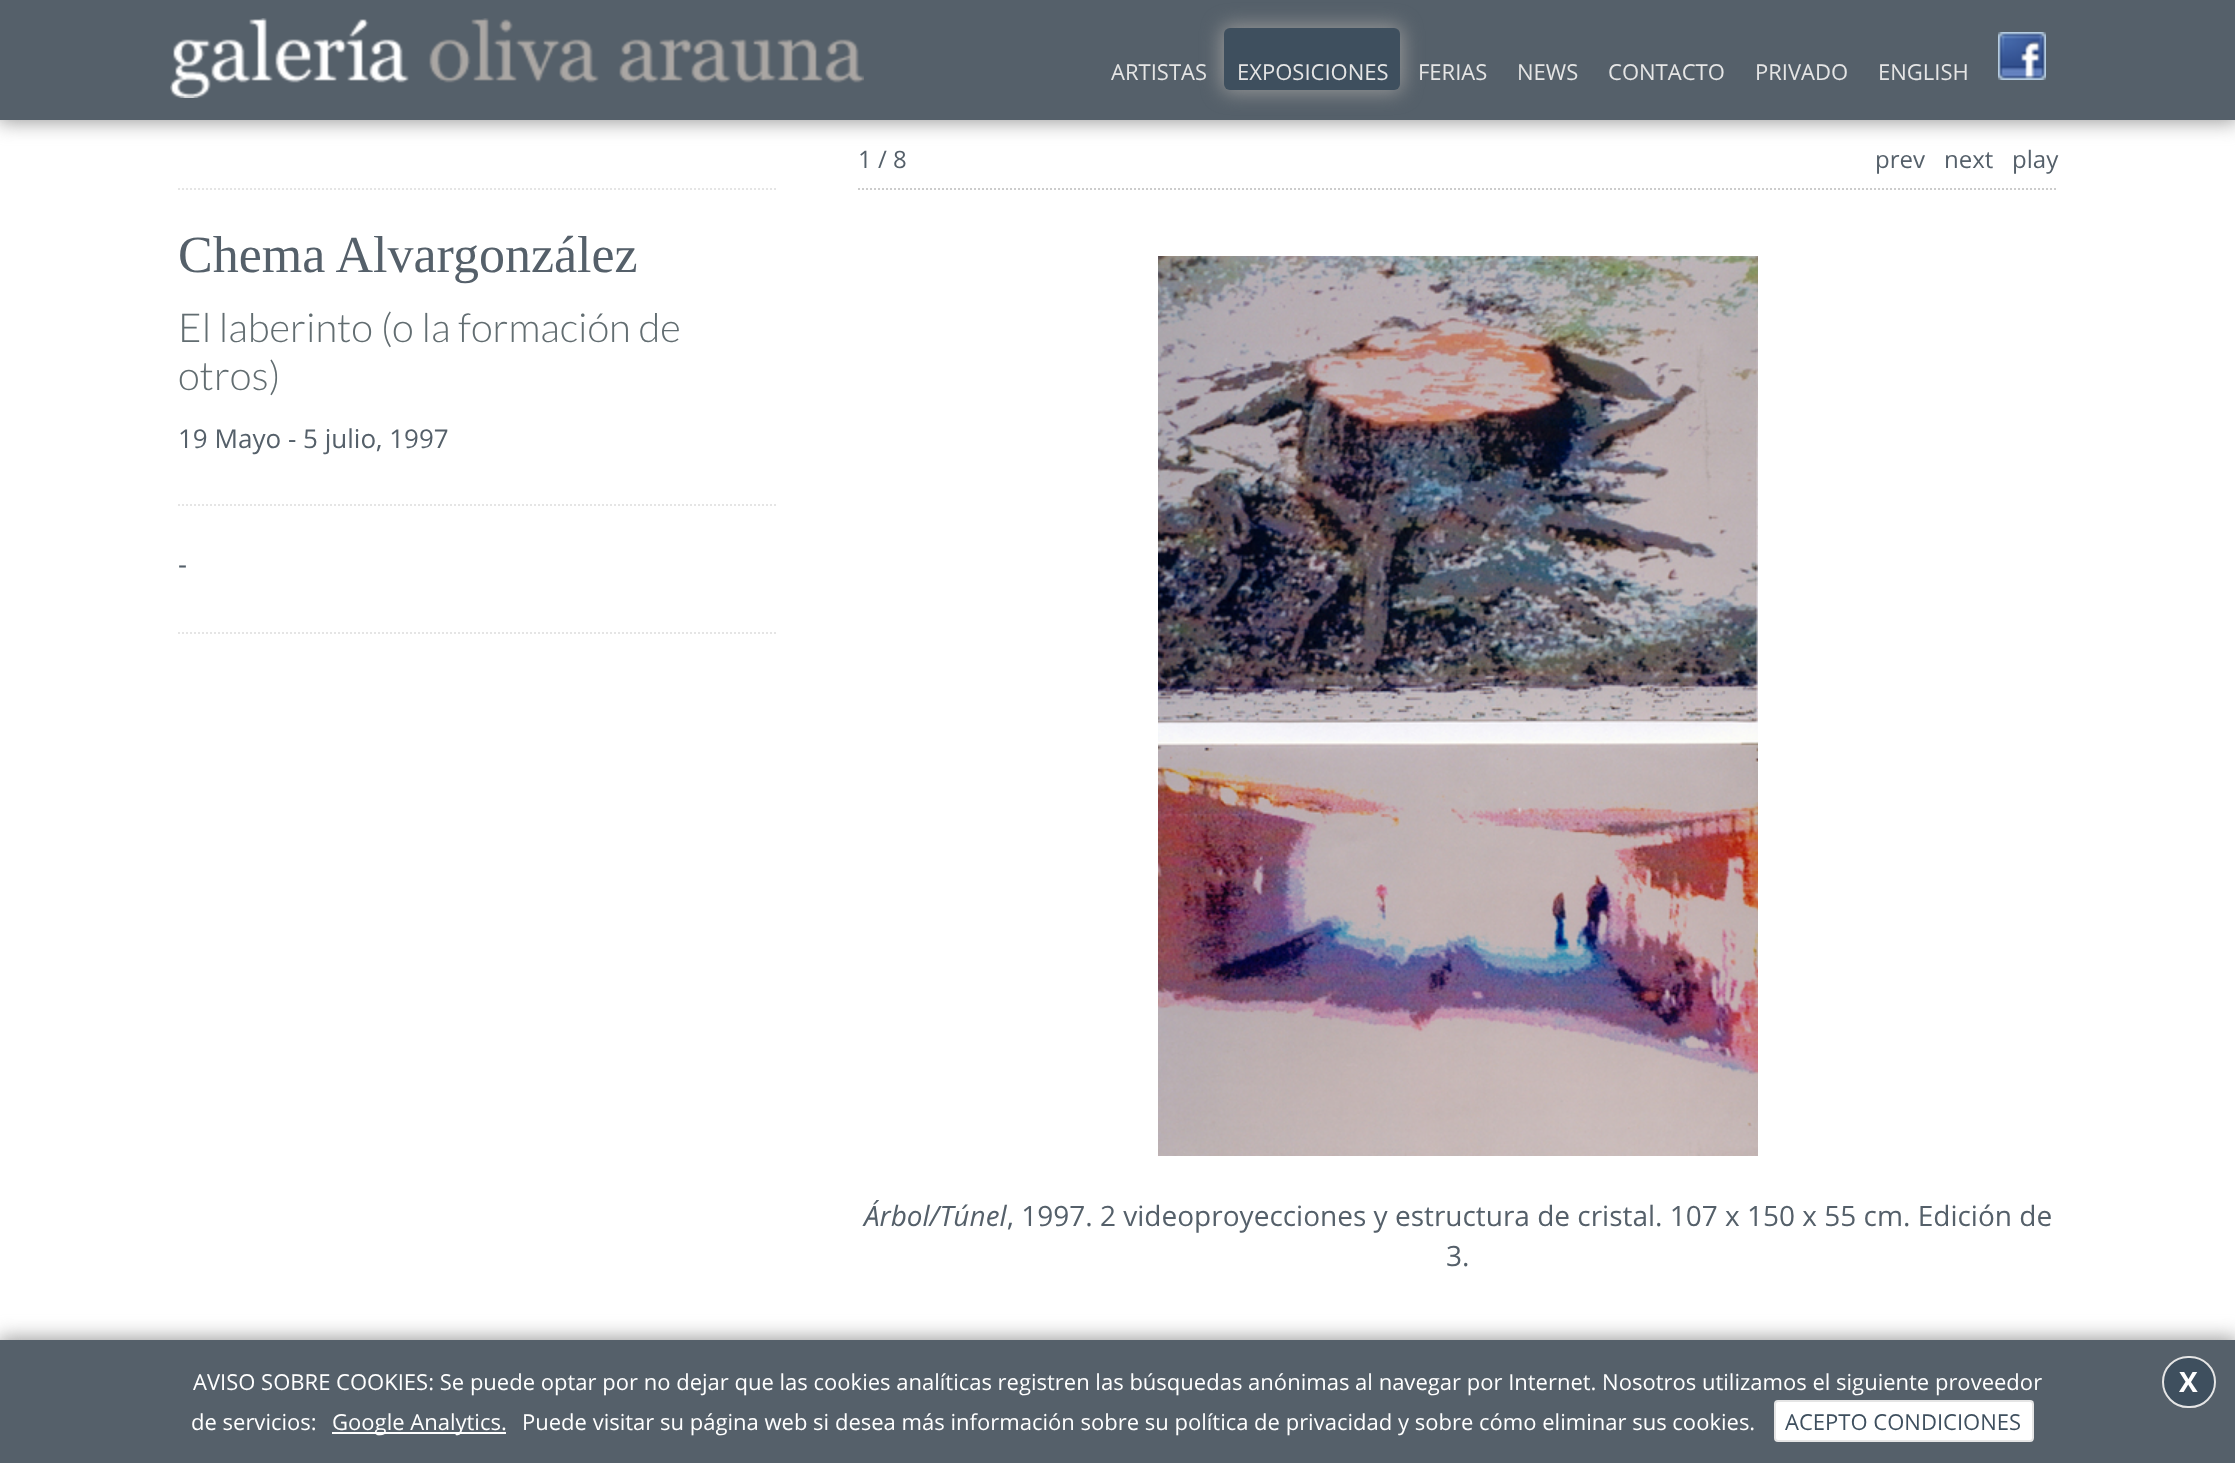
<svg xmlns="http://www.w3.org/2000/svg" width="2235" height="1463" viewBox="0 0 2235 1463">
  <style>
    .t1 { font: 22px Open Sans; fill: #e5e5e5; }
    .t2 { font: 52px Liberation Serif; fill: #55606a; }
    .t3 { font: 300 40px Lato; fill: #626d71; }
    .t4 { font: 26px Open Sans; fill: #55606a; }
    .t5 { font: 28px Open Sans; fill: #55606a; }
    .t6 { font: 24px Open Sans; fill: #55606a; }
    .t7 { font: italic 28px Open Sans; fill: #55606a; }
    .t8 { font: 22px Open Sans; fill: #fff; }
    .t9 { font: 22px Open Sans; fill: #3e4f5e; }
    .t10 { font: bold 28px Open Sans; fill: #fff; }
  </style>
  <rect width="100%" height="100%" fill="#fff"/>
  <rect x="-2" y="-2" width="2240" height="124" fill="#999" filter="blur(10px)"/>
  <rect x="0" y="0" width="2235" height="120" fill="#55606a"/>
  <image x="170" y="18" width="694" height="80" href="images/1.png"/>
  <text x="1111" y="80" class="t1">ARTISTAS</text>
  <rect x="1222" y="26" width="180" height="66" rx="8" fill="#999" filter="blur(10px)"/>
  <rect x="1224" y="28" width="176" height="62" rx="6" fill="#3e4f5e"/>
  <text x="1237" y="80" class="t1">EXPOSICIONES</text>
  <text x="1418" y="80" class="t1">FERIAS</text>
  <text x="1517" y="80" class="t1">NEWS</text>
  <text x="1608" y="80" class="t1">CONTACTO</text>
  <text x="1755" y="80" class="t1">PRIVADO</text>
  <text x="1878" y="80" class="t1">ENGLISH</text>
  <image x="1998" y="32" width="48" height="48" href="images/2.png"/>
  <path d="M178 189H778" fill="none" stroke="#e5e5e5" stroke-width="2" stroke-dasharray="2 2"/>
  <text x="178" y="272" class="t2">Chema Alvargonzález</text>
  <text x="178" y="342" class="t3">El laberinto (o la formación de</text>
  <text x="178" y="390" class="t3">otros)</text>
  <text x="178" y="448" class="t4">19 Mayo - 5 julio, 1997</text>
  <path d="M178 505H778" fill="none" stroke="#e5e5e5" stroke-width="2" stroke-dasharray="2 2"/>
  <text x="178" y="574" class="t5">-</text>
  <path d="M178 633H778" fill="none" stroke="#e5e5e5" stroke-width="2" stroke-dasharray="2 2"/>
  <path d="M858 189H2058" fill="none" stroke="#ccc" stroke-width="2" stroke-dasharray="2 2"/>
  <text x="858" y="168" class="t6">1 / 8</text>
  <text x="1875" y="168" class="t6">prev</text>
  <text x="1944" y="168" class="t6">next</text>
  <text x="2012" y="168" class="t6">play</text>
  <image x="1158" y="256" width="600" height="900" href="images/3.png"/>
  <text x="864" y="1226" class="t7">Árbol/Túnel</text>
  <text x="1007" y="1226" class="t5">, 1997. 2 videoproyecciones y estructura de cristal. 107 x 150 x 55 cm. Edición de</text>
  <text x="1446" y="1266" class="t5">3.</text>
  <rect x="-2" y="1338" width="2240" height="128" fill="#999" filter="blur(10px)"/>
  <rect x="0" y="1340" width="2235" height="123" fill="#55606a"/>
  <text x="193" y="1390" class="t8">AVISO SOBRE COOKIES: Se puede optar por no dejar que las cookies analíticas registren las búsquedas anónimas al navegar por Internet. Nosotros utilizamos el siguiente proveedor</text>
  <text x="191" y="1430" class="t8">de servicios:</text>
  <rect x="332" y="1432" width="174" height="2" fill="#fff"/>
  <text x="332" y="1430" class="t8">Google Analytics.</text>
  <text x="522" y="1430" class="t8">Puede visitar su página web si desea más información sobre su política de privacidad y sobre cómo eliminar sus cookies.</text>
  <rect x="1775" y="1401" width="258" height="40" rx="3" fill="#fff" stroke="#e5e5e5" stroke-width="2"/>
  <text x="1785" y="1430" class="t9">ACEPTO CONDICIONES</text>
  <rect x="2163" y="1357" width="52" height="50" rx="25" fill="#3e4f5e" stroke="#e5e5e5" stroke-width="2"/>
  <text x="2179" y="1392" class="t10">X</text>
</svg>
